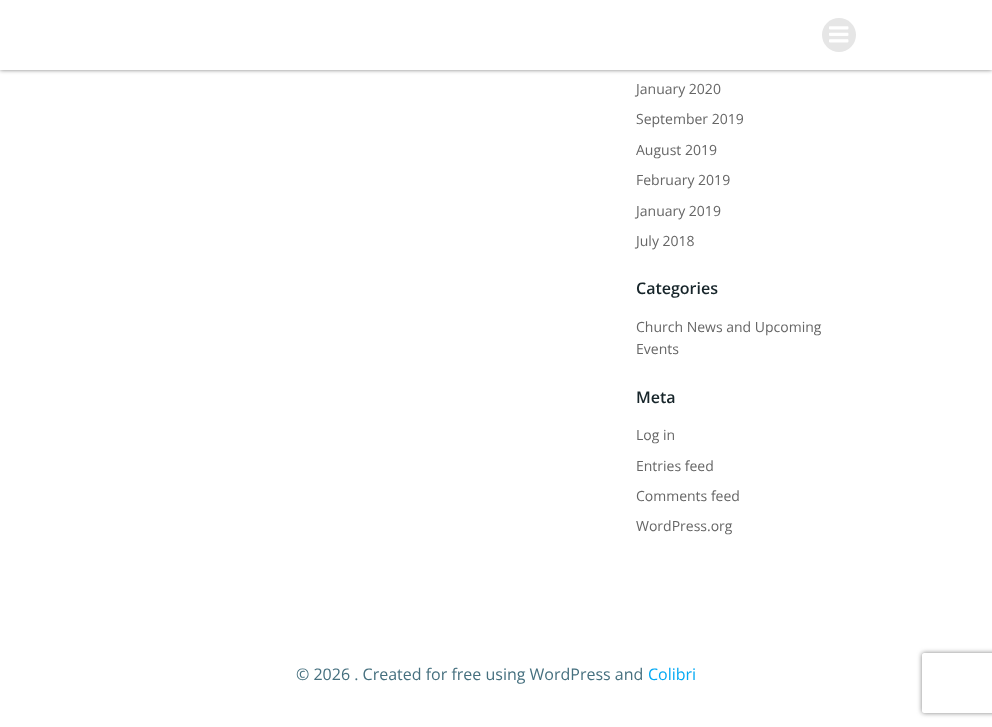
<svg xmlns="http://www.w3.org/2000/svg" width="992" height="727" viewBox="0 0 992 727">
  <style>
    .t1 { font: 14px Open Sans; fill: #666; }
    .t2 { font: 600 16px Open Sans; fill: #17252a; }
    .t3 { font: 16px Open Sans; fill: #46707f; }
    .t4 { font: 16px Open Sans; fill: #03a9f4; }
  </style>
  <defs>
    <clipPath id="clip1"><path d="M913 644H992V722H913ZM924 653H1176C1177 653 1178 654 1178 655V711C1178 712 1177 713 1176 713H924C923 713 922 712 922 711V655C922 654 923 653 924 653Z" clip-rule="evenodd"/></clipPath>
  </defs>
  <rect width="100%" height="100%" fill="#fff"/>
  <rect x="0" y="0" width="992" height="70" fill="#00000080" filter="blur(2px)"/>
  <rect x="0" y="0" width="992" height="70" fill="#fff"/>
  <circle cx="839" cy="35" r="17" fill="#e6e6e6"/>
  <image x="829" y="26" width="20" height="17" href="images/1.png"/>
  <text x="636" y="94" class="t1">January 2020</text>
  <text x="636" y="124" class="t1">September 2019</text>
  <text x="636" y="155" class="t1">August 2019</text>
  <text x="636" y="185" class="t1">February 2019</text>
  <text x="636" y="216" class="t1">January 2019</text>
  <text x="636" y="246" class="t1">July 2018</text>
  <text x="636" y="294" class="t2">Categories</text>
  <text x="636" y="332" class="t1">Church News and Upcoming</text>
  <text x="636" y="354" class="t1">Events</text>
  <text x="636" y="403" class="t2">Meta</text>
  <text x="636" y="440" class="t1">Log in</text>
  <text x="636" y="471" class="t1">Entries feed</text>
  <text x="636" y="501" class="t1">Comments feed</text>
  <text x="636" y="531" class="t1">WordPress.org</text>
  <text x="296" y="680" class="t3">© 2026 . Created for free using WordPress and</text>
  <text x="648" y="680" class="t4">Colibri</text>
  <g clip-path="url(#clip1)">
    <rect x="922" y="653" width="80" height="60" rx="2" fill="#808080" filter="blur(2.5px)"/>
  </g>
</svg>
